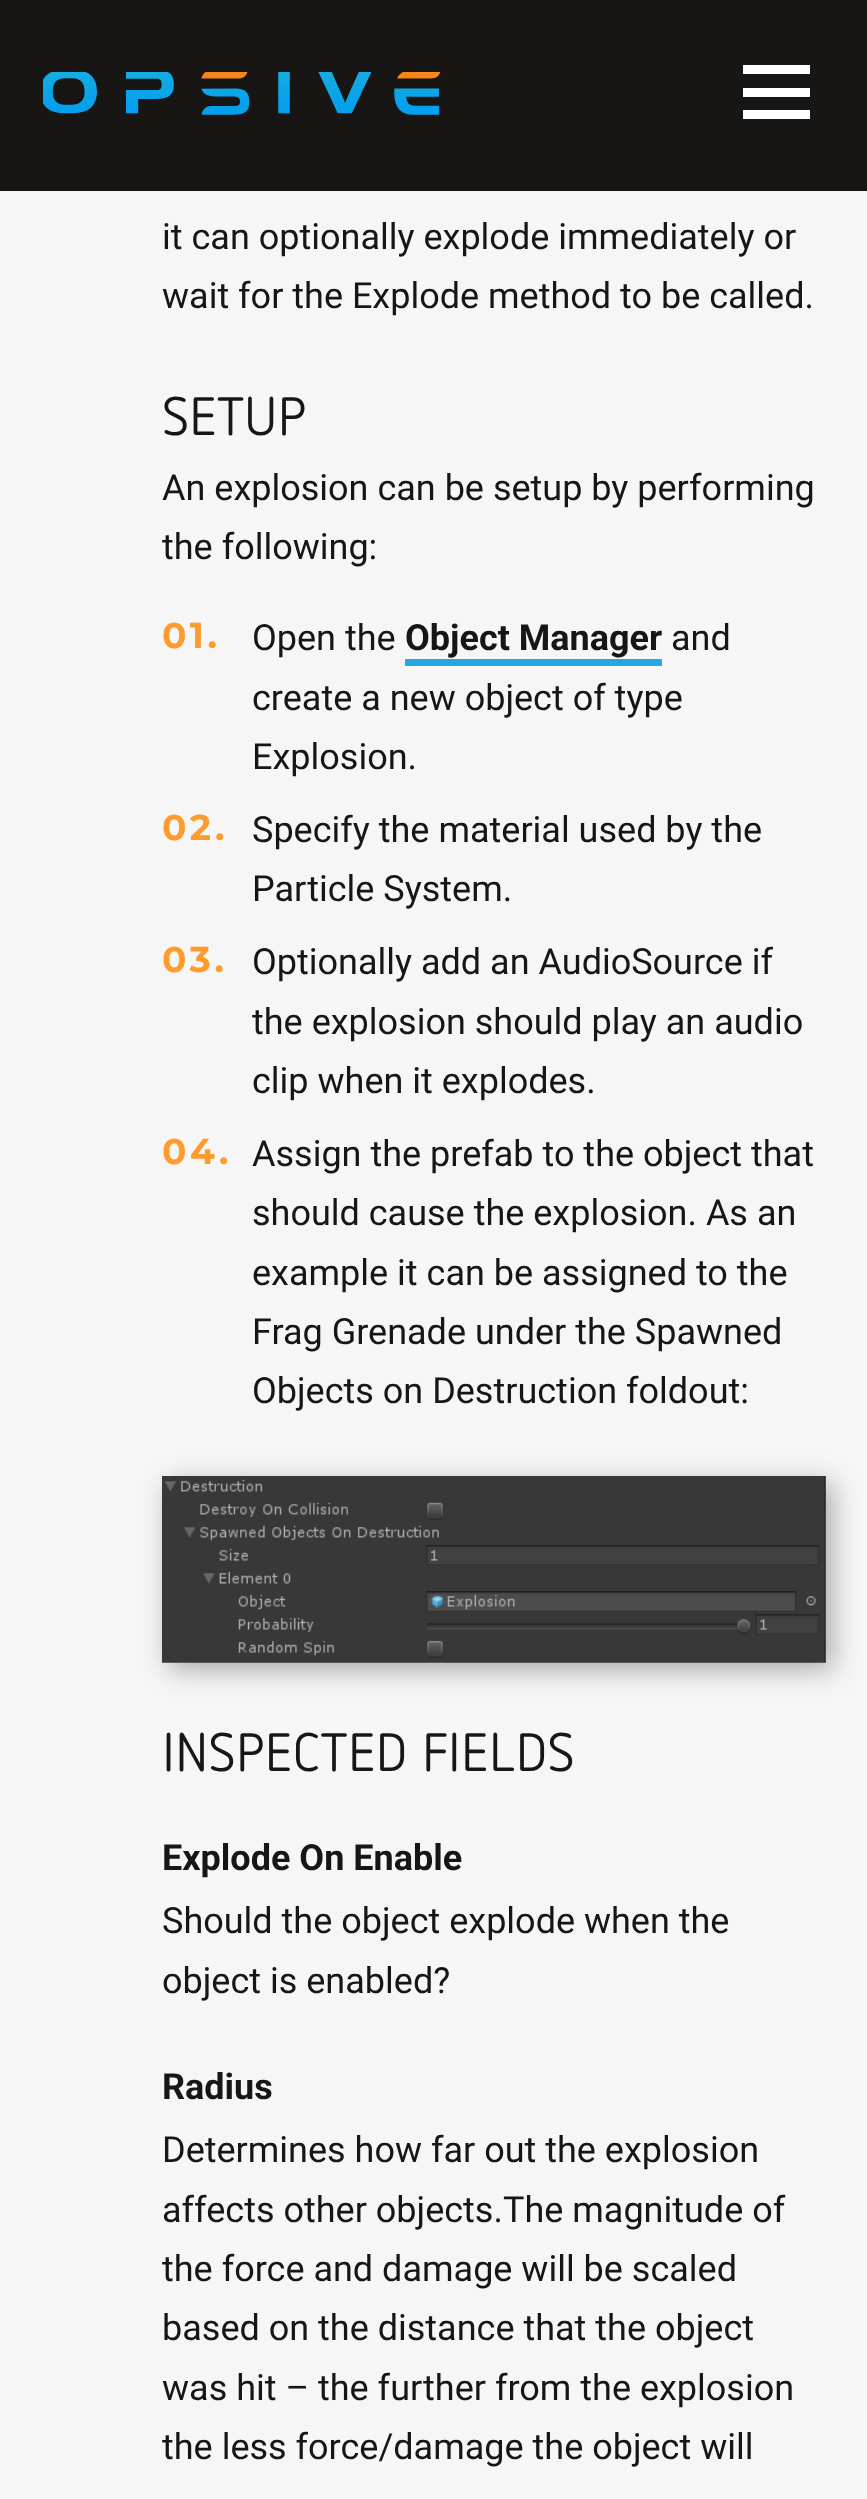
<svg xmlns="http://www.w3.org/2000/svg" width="867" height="2499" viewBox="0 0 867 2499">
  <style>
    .t1 { font: 36px Roboto; fill: #181515; }
    .t2 { font: 54px 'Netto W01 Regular'; fill: #181515; }
    .t3 { font: bold 36px Montserrat; letter-spacing: 3.5px; fill: #fd9b2c; }
    .t4 { font: bold 36px Roboto; fill: #181515; }
  </style>
  <rect width="100%" height="100%" fill="#f6f6f6"/>
  <rect x="0" y="0" width="867" height="191" fill="#181515"/>
  <image x="43" y="72" width="398" height="43" href="images/1.png"/>
  <rect x="743" y="110" width="67" height="9" fill="#fff"/>
  <rect x="743" y="65" width="67" height="9" fill="#fff"/>
  <rect x="743" y="88" width="67" height="9" fill="#fff"/>
  <text x="162" y="249" class="t1">it can optionally explode immediately or</text>
  <text x="162" y="308" class="t1">wait for the Explode method to be called.</text>
  <text x="162" y="435" class="t2">SETUP</text>
  <text x="162" y="500" class="t1">An explosion can be setup by performing</text>
  <text x="162" y="559" class="t1">the following:</text>
  <text x="162" y="648" class="t3">01.</text>
  <text x="252" y="650" class="t1">Open the</text>
  <text x="405" y="650" class="t4">Object Manager</text>
  <rect x="405" y="659" width="257" height="7" fill="#22a9e2"/>
  <text x="671" y="650" class="t1">and</text>
  <text x="252" y="710" class="t1">create a new object of type</text>
  <text x="252" y="769" class="t1">Explosion.</text>
  <text x="162" y="840" class="t3">02</text>
  <text x="215" y="840" class="t3">.</text>
  <text x="252" y="842" class="t1">Specify the material used by the</text>
  <text x="252" y="901" class="t1">Particle System.</text>
  <text x="162" y="972" class="t3">03.</text>
  <text x="252" y="974" class="t1">Optionally add an AudioSource if</text>
  <text x="252" y="1034" class="t1">the explosion should play an audio</text>
  <text x="252" y="1093" class="t1">clip when it explodes.</text>
  <text x="162" y="1164" class="t3">04</text>
  <text x="219" y="1164" class="t3">.</text>
  <text x="252" y="1166" class="t1">Assign the prefab to the object that</text>
  <text x="252" y="1225" class="t1">should cause the explosion. As an</text>
  <text x="252" y="1285" class="t1">example it can be assigned to the</text>
  <text x="252" y="1344" class="t1">Frag Grenade under the Spawned</text>
  <text x="252" y="1403" class="t1">Objects on Destruction foldout:</text>
  <rect x="169" y="1483" width="664" height="187" fill="#0000004d" filter="blur(13.5px)"/>
  <image x="162" y="1476" width="664" height="187" href="images/2.png"/>
  <text x="162" y="1771" class="t2">INSPECTED FIELDS</text>
  <text x="162" y="1870" class="t4">Explode On Enable</text>
  <text x="162" y="1933" class="t1">Should the object explode when the</text>
  <text x="162" y="1993" class="t1">object is enabled?</text>
  <text x="162" y="2099" class="t4">Radius</text>
  <text x="162" y="2162" class="t1">Determines how far out the explosion</text>
  <text x="162" y="2222" class="t1">affects other objects.The magnitude of</text>
  <text x="162" y="2281" class="t1">the force and damage will be scaled</text>
  <text x="162" y="2340" class="t1">based on the distance that the object</text>
  <text x="162" y="2400" class="t1">was hit – the further from the explosion</text>
  <text x="162" y="2459" class="t1">the less force/damage the object will</text>
</svg>
